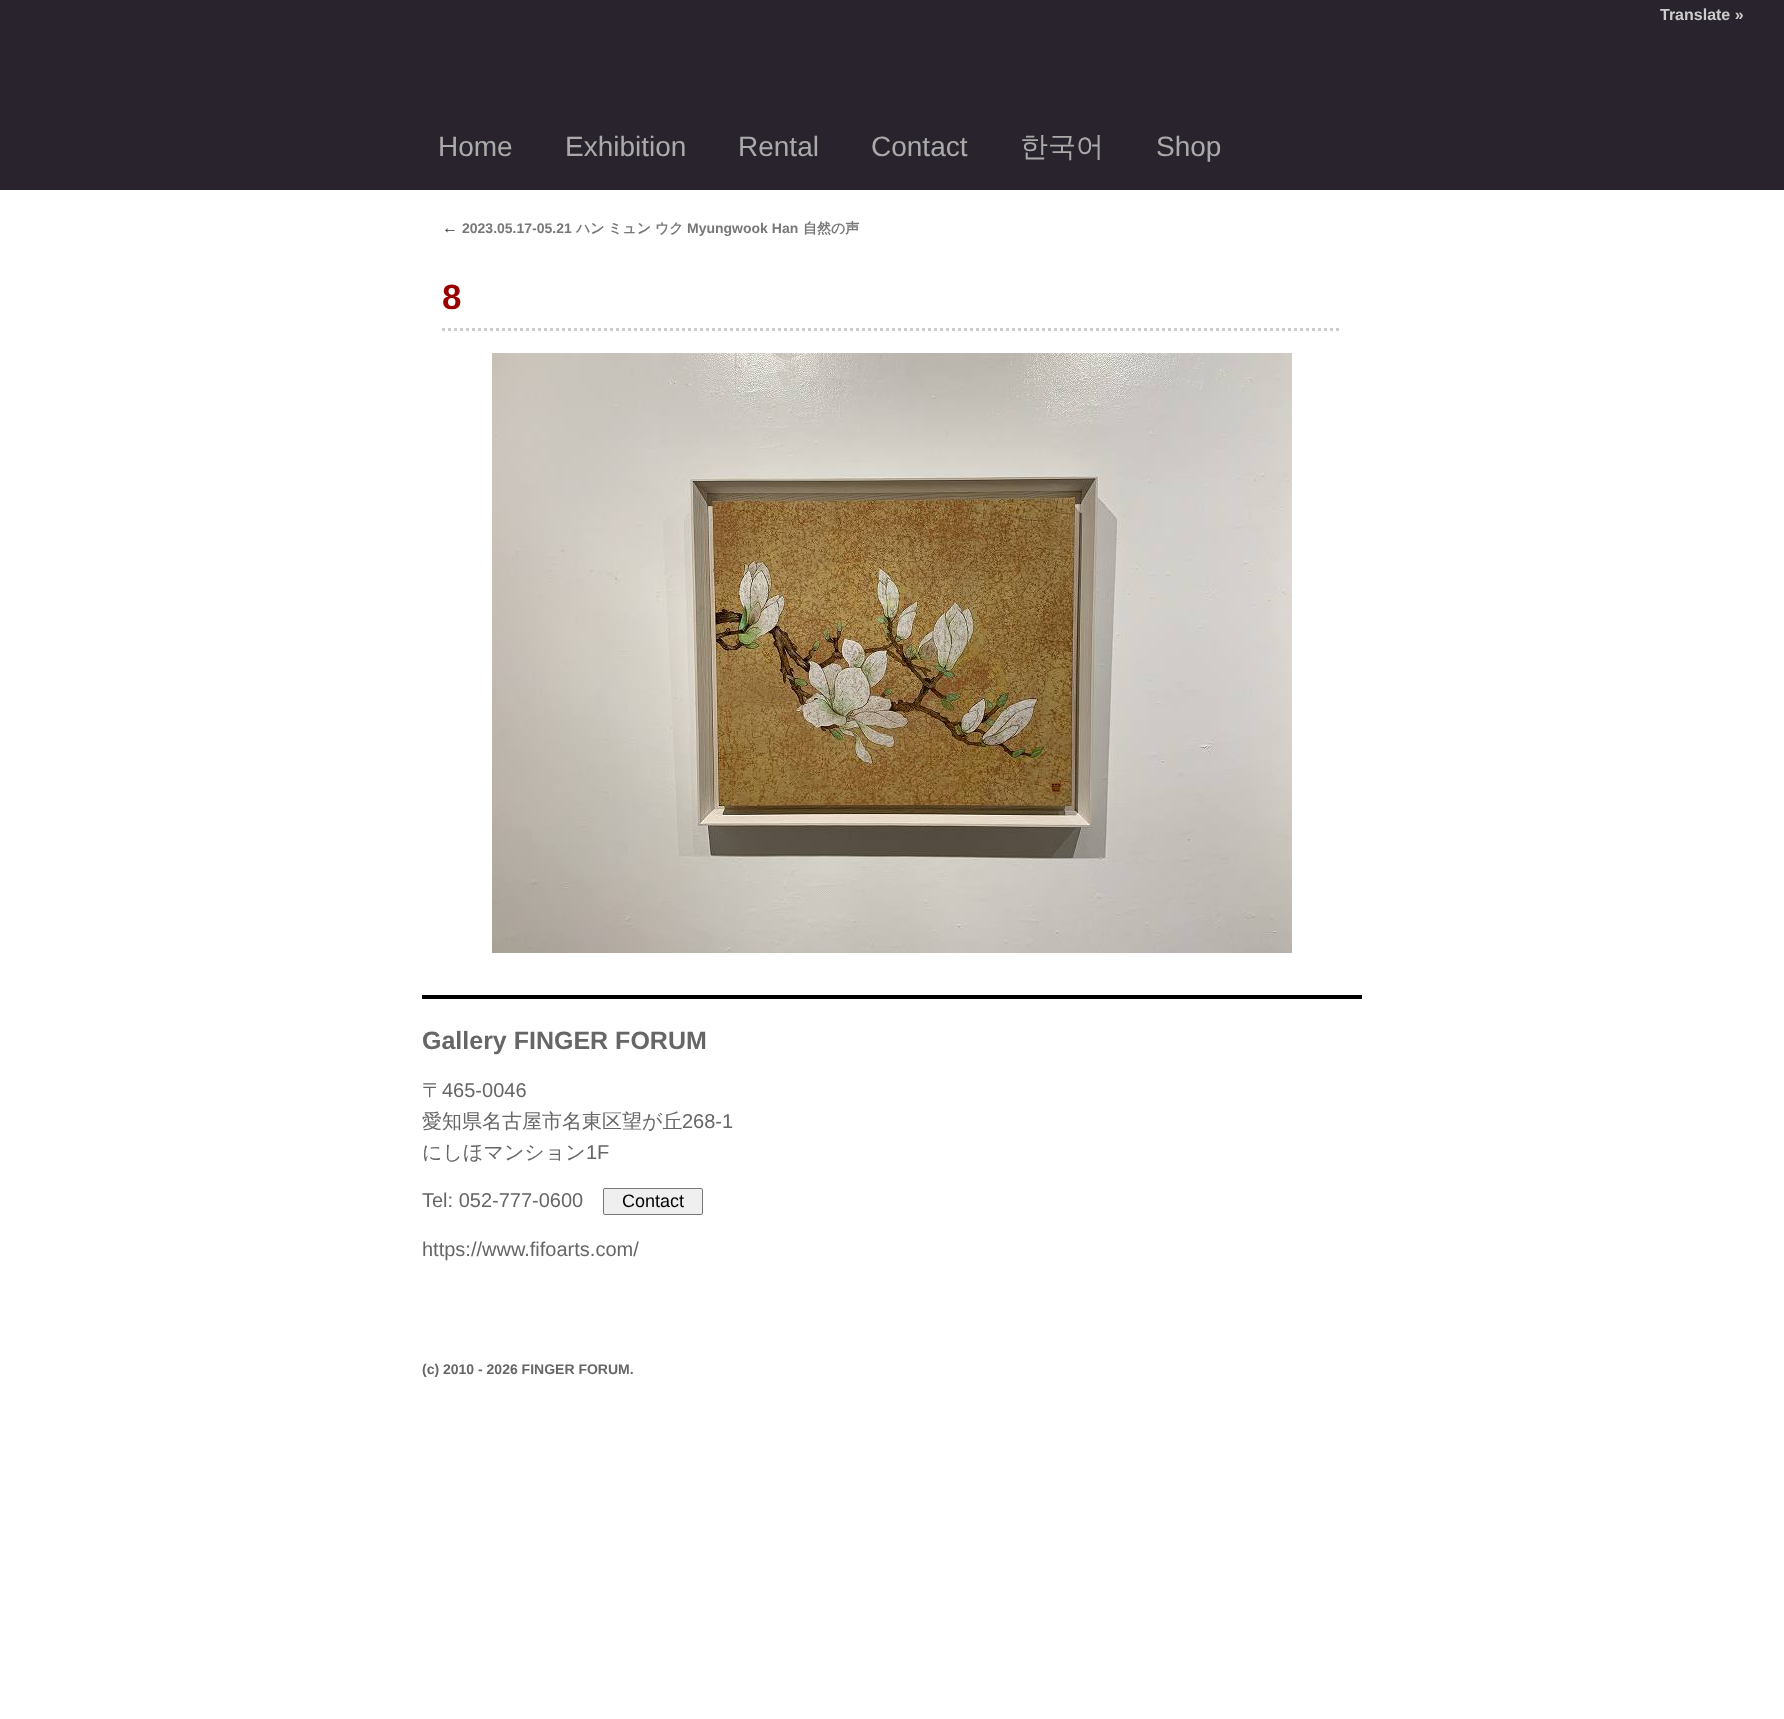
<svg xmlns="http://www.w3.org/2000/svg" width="1784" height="1719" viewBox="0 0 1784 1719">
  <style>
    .t1 { font: bold 16px Liberation Sans; fill: #ccc; }
    .t2 { font: 28px Liberation Sans; fill: #aaa; }
    .t3 { font: 500 28px WenQuanYi Zen Hei; fill: #aaa; }
    .t4 { font: italic 16px Liberation Serif; fill: #333; }
    .t5 { font: bold 14px Liberation Sans; fill: #777; }
    .t6 { font: bold 14px WenQuanYi Zen Hei; fill: #777; }
    .t7 { font: bold 35px Liberation Sans; fill: #900; }
    .t8 { font: bold 25px Liberation Sans; fill: #666; }
    .t9 { font: 500 20px WenQuanYi Zen Hei; fill: #666; }
    .t10 { font: 20px Liberation Sans; fill: #666; }
    .t11 { font: 18px Liberation Sans; fill: #000; }
    .t12 { font: bold 14px Liberation Sans; fill: #666; }
  </style>
  <rect width="100%" height="100%" fill="#fff"/>
  <rect x="0" y="0" width="1784" height="190" fill="#29232d"/>
  <text x="1660" y="20" class="t1">Translate »</text>
  <text x="438" y="156" class="t2">Home</text>
  <text x="565" y="156" class="t2">Exhibition</text>
  <text x="738" y="156" class="t2">Rental</text>
  <text x="871" y="156" class="t2">Contact</text>
  <text x="1020" y="156" class="t3">한국어</text>
  <text x="1156" y="156" class="t2">Shop</text>
  <text x="442" y="233" class="t4">←</text>
  <text x="462" y="233" class="t5">2023.05.17-05.21</text>
  <text x="576" y="233" class="t6">ハン</text>
  <text x="608" y="233" class="t6">ミュン</text>
  <text x="655" y="233" class="t6">ウク</text>
  <text x="687" y="233" class="t5">Myungwook Han</text>
  <text x="803" y="233" class="t6">自然の声</text>
  <path d="M442 329.5H1342" fill="none" stroke="#ccc" stroke-width="3" stroke-dasharray="3 3"/>
  <text x="442" y="309" class="t7">8</text>
  <image x="492" y="353" width="800" height="600" href="images/1.png"/>
  <rect x="422" y="995" width="940" height="4" fill="#000"/>
  <text x="422" y="1049" class="t8">Gallery FINGER FORUM</text>
  <text x="422" y="1097" class="t9">〒</text>
  <text x="442" y="1097" class="t10">465-0046</text>
  <text x="422" y="1128" class="t9">愛知県名古屋市名東区望が丘</text>
  <text x="682" y="1128" class="t10">268-1</text>
  <text x="422" y="1159" class="t9">にしほマンション</text>
  <text x="586" y="1159" class="t10">1F</text>
  <text x="422" y="1207" class="t10">Tel: 052-777-0600</text>
  <rect x="603.5" y="1188.5" width="99" height="26" rx="1.5" fill="#efefef" stroke="#767676"/>
  <text x="622" y="1207" class="t11">Contact</text>
  <text x="422" y="1256" class="t10">https://www.fifoarts.com/</text>
  <text x="422" y="1374" class="t12">(c) 2010 - 2026 FINGER FORUM.</text>
</svg>
